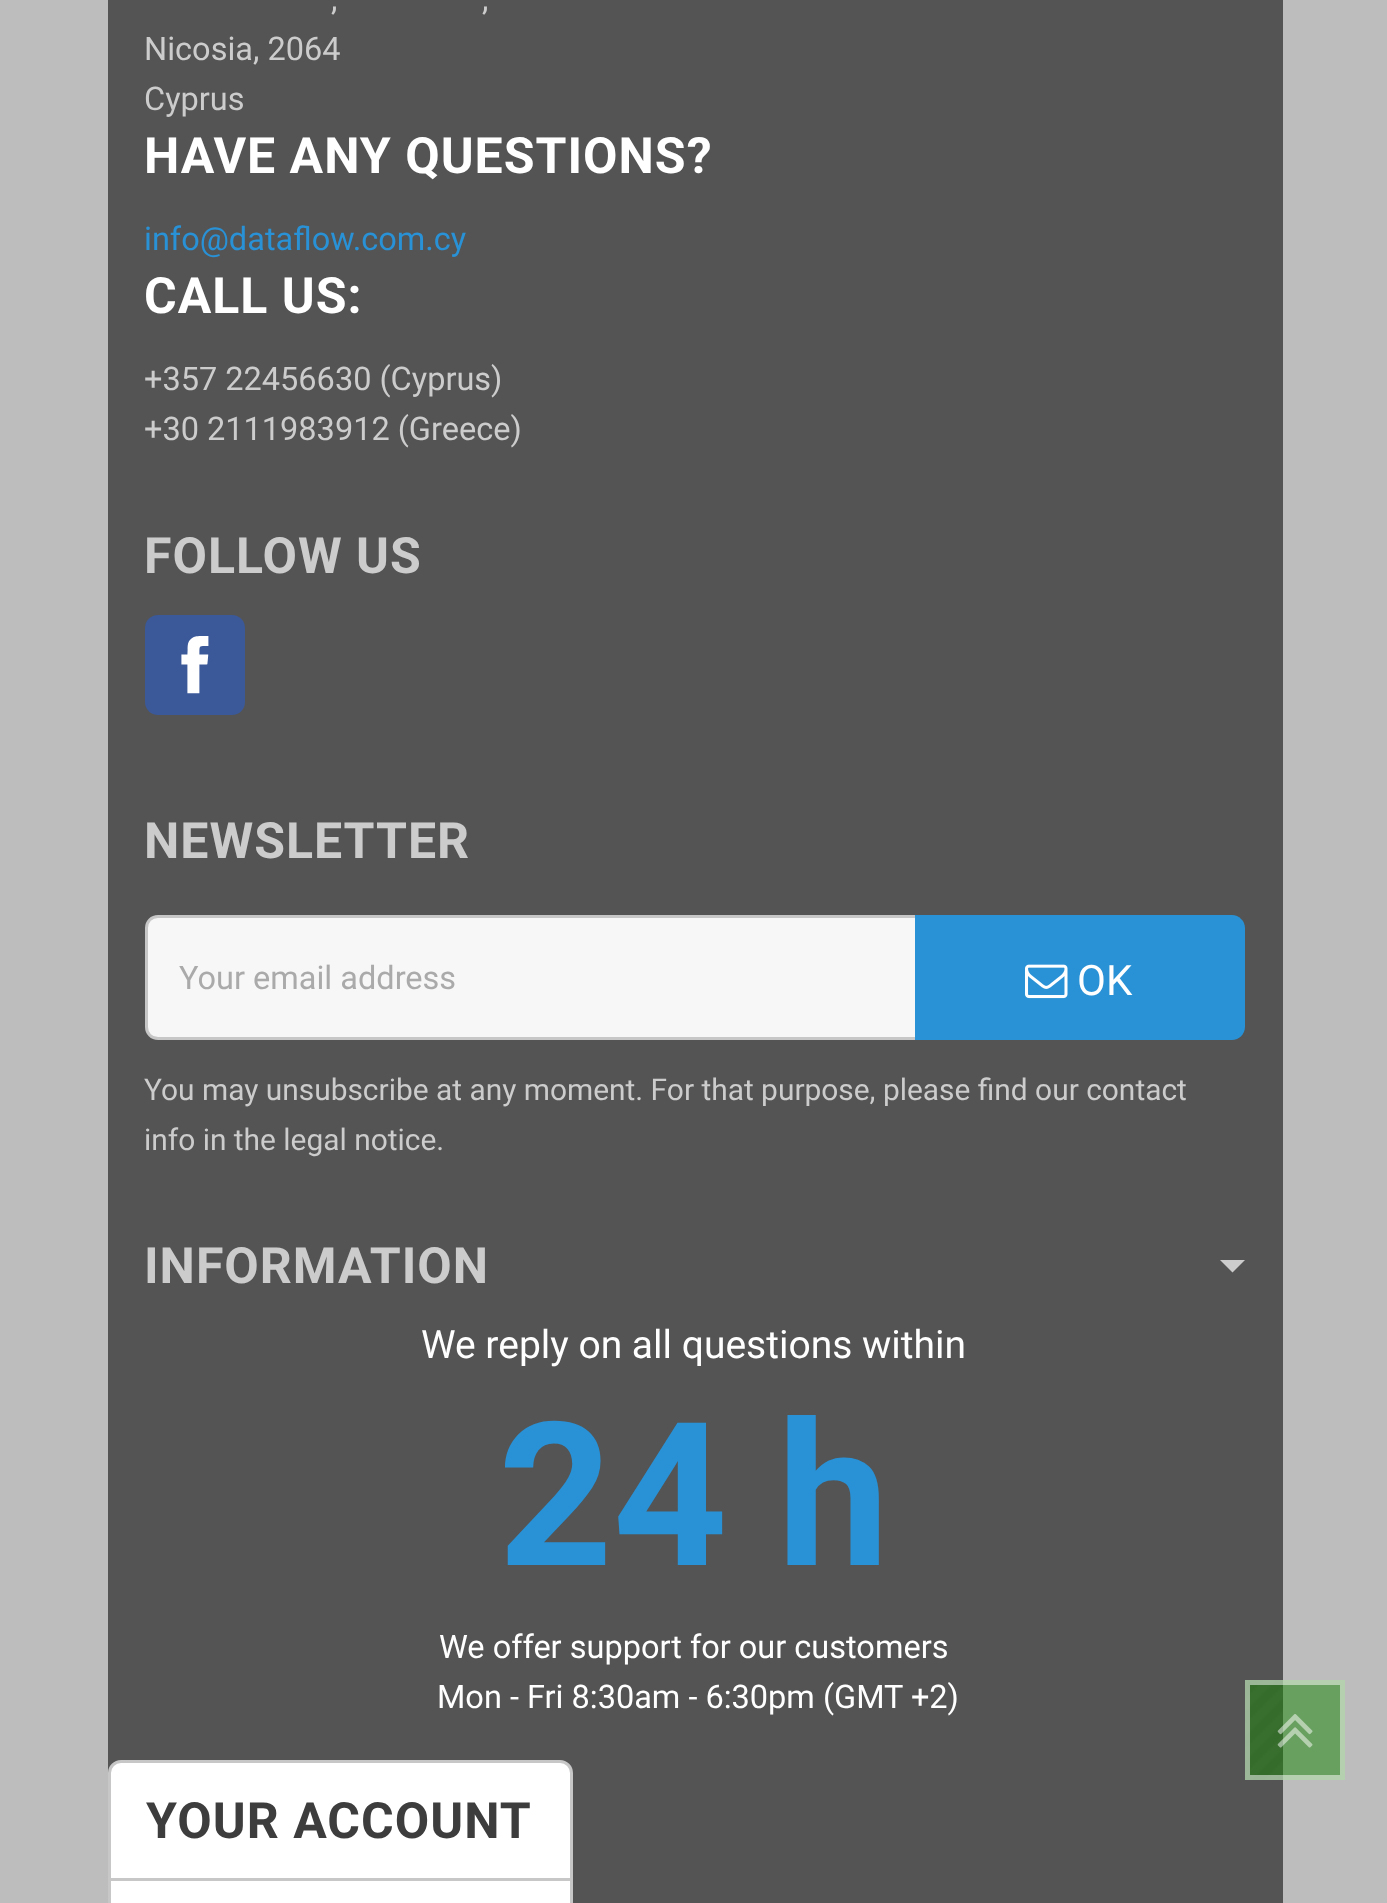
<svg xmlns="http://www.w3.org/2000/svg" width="1387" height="1903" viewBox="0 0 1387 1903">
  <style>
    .t1 { font: 32.5px Roboto; fill: #ccc; }
    .t2 { font: bold 50px Roboto; letter-spacing: 1px; fill: #fff; }
    .t3 { font: 32.5px Roboto; fill: #2991d6; }
    .t4 { font: bold 50px Roboto; letter-spacing: 1px; fill: #ccc; }
    .t5 { font: 32.5px Roboto; fill: #aaa; }
    .t6 { font: 42px Roboto; fill: #fff; }
    .t7 { font: 29.9px Roboto; fill: #ccc; }
    .t8 { font: 39px Roboto; fill: #fff; }
    .t9 { font: bold 200px 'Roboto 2'; fill: #2991d6; }
    .t10 { font: 32.5px Roboto; fill: #fff; }
    .t11 { font: bold 50px Roboto; letter-spacing: 1px; fill: #3d3d3d; }
  </style>
  <rect width="100%" height="100%" fill="#bdbdbd"/>
  <rect x="1283" y="1680" width="62" height="100" fill="#68a05f"/>
  <rect x="108" y="0" width="1175" height="1903" fill="#545454"/>
  <rect x="1245" y="1680" width="38" height="100" fill="#346c2a"/>
  <text x="331" y="10" class="t1">,</text>
  <text x="482" y="10" class="t1">,</text>
  <text x="144" y="60" class="t1">Nicosia, 2064</text>
  <text x="144" y="110" class="t1">Cyprus</text>
  <text x="144" y="173" class="t2">HAVE ANY QUESTIONS?</text>
  <text x="144" y="250" class="t3">info@dataflow.com.cy</text>
  <text x="144" y="313" class="t2">CALL US:</text>
  <text x="144" y="390" class="t1">+357 22456630 (Cyprus)</text>
  <text x="144" y="440" class="t1">+30 2111983912 (Greece)</text>
  <text x="144" y="573" class="t4">FOLLOW US</text>
  <rect x="145" y="615" width="100" height="100" rx="13" fill="#3b5998"/>
  <image x="181" y="636" width="28" height="58" href="images/1.png"/>
  <text x="144" y="858" class="t4">NEWSLETTER</text>
  <path d="M158 916.5H916.5V1038.5H158C151.5 1038.5 146.5 1033.5 146.5 1027V928C146.5 921.5 151.5 916.5 158 916.5Z" fill="#f7f7f7" stroke="#c7c7c7" stroke-width="3"/>
  <text x="179" y="989" class="t5">Your email address</text>
  <path d="M915 915H1232C1239 915 1245 921 1245 928V1027C1245 1034 1239 1040 1232 1040H915Z" fill="#2991d6"/>
  <image x="1025" y="964" width="43" height="35" href="images/2.png"/>
  <text x="1077" y="995" class="t6">OK</text>
  <text x="144" y="1100" class="t7">You may unsubscribe at any moment. For that purpose, please find our contact</text>
  <text x="144" y="1150" class="t7">info in the legal notice.</text>
  <text x="144" y="1283" class="t4">INFORMATION</text>
  <path d="M1220 1260H1245L1232.5 1272.5Z" fill="#ccc"/>
  <text x="421" y="1358" class="t8">We reply on all questions within</text>
  <text x="498" y="1565" class="t9">24 h</text>
  <text x="439" y="1658" class="t10">We offer support for our customers</text>
  <text x="437" y="1708" class="t10">Mon - Fri 8:30am - 6:30pm (GMT +2)</text>
  <rect x="109.5" y="1761.5" width="462" height="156" rx="11.5" fill="#fff" stroke="#c7c7c7" stroke-width="3"/>
  <rect x="110" y="1878" width="460" height="3" fill="#c7c7c7"/>
  <text x="146" y="1838" class="t11">YOUR ACCOUNT</text>
  <image x="1245" y="1680" width="38" height="100" href="images/3.png"/>
  <rect x="1247.5" y="1682.5" width="95" height="95" fill="none" stroke="#ffffff80" stroke-width="5"/>
  <image x="1277" y="1714" width="36" height="34" href="images/4.png"/>
</svg>
